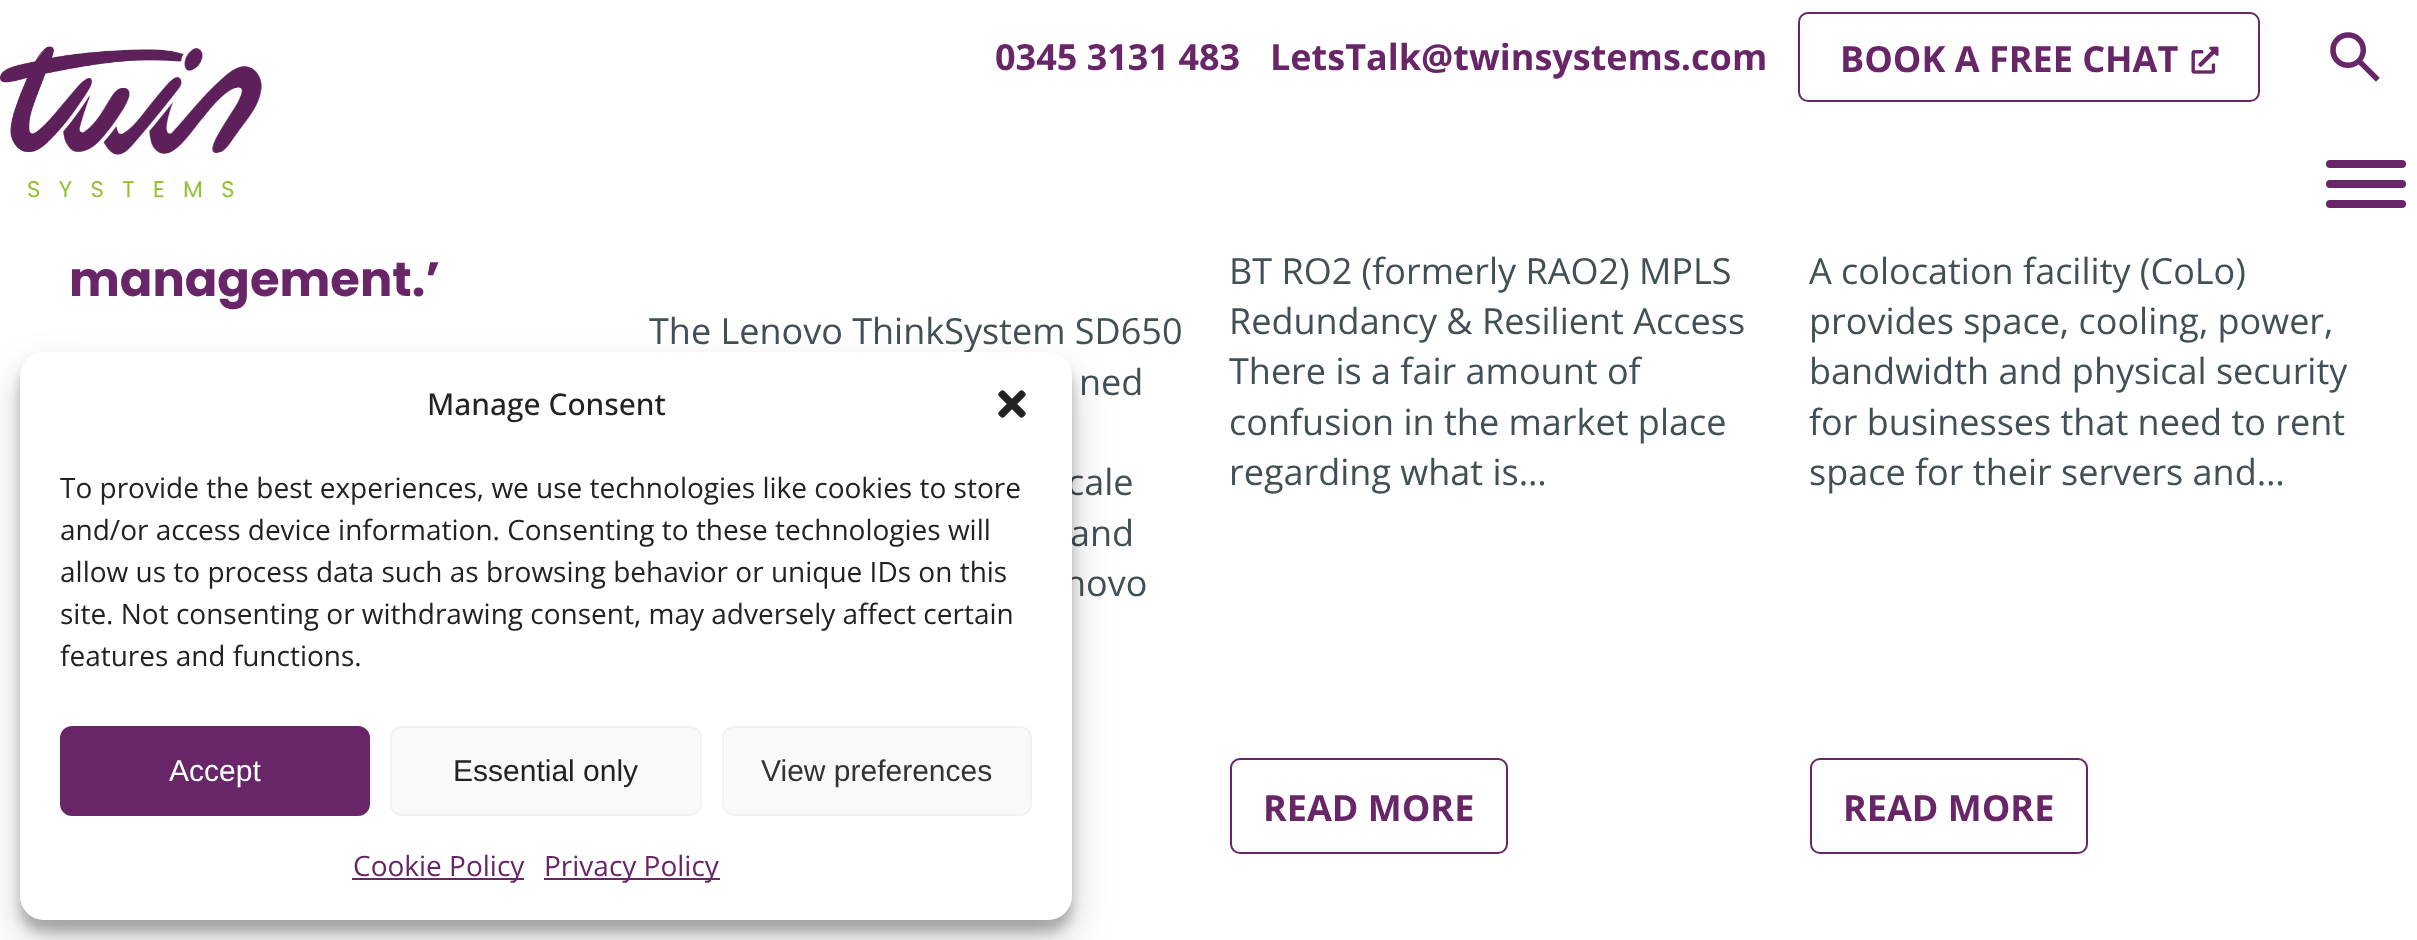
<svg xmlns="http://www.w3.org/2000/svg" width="2417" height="940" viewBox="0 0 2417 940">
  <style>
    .t1 { font: bold 36px Open Sans; fill: #682567; }
    .t2 { font: bold 48px Poppins; fill: #682567; }
    .t3 { font: 36px Open Sans; fill: #415055; }
    .t4 { font: 500 30px Open Sans; fill: #222; }
    .t5 { font: 28px Open Sans; fill: #222; }
    .t6 { font: 30px Liberation Sans; fill: #fff; }
    .t7 { font: 30px Liberation Sans; fill: #222; }
    .t8 { font: 30px Liberation Sans; fill: #333; }
    .t9 { font: 28px Open Sans; fill: #682567; }
  </style>
  <rect width="100%" height="100%" fill="#fff"/>
  <image x="0" y="46" width="262" height="152" href="images/1.png"/>
  <text x="995" y="70" class="t1">0345 3131 483</text>
  <text x="1270" y="70" class="t1">LetsTalk@twinsystems.com</text>
  <rect x="1799" y="13" width="460" height="88" rx="9" fill="none" stroke="#682567" stroke-width="2"/>
  <text x="1840" y="72" class="t1">BOOK A FREE CHAT</text>
  <image x="2191" y="46" width="28" height="28" href="images/2.png"/>
  <image x="2330" y="32" width="50" height="50" href="images/3.png"/>
  <rect x="2326" y="160" width="80" height="8" rx="4" fill="#682567"/>
  <rect x="2326" y="180" width="80" height="8" rx="4" fill="#682567"/>
  <rect x="2326" y="200" width="80" height="8" rx="4" fill="#682567"/>
  <text x="69" y="296" class="t2">management.’</text>
  <text x="1229" y="284" class="t3">BT RO2 (formerly RAO2) MPLS</text>
  <text x="1229" y="334" class="t3">Redundancy &amp; Resilient Access</text>
  <text x="1229" y="384" class="t3">There is a fair amount of</text>
  <text x="1229" y="435" class="t3">confusion in the market place</text>
  <text x="1229" y="485" class="t3">regarding what is…</text>
  <rect x="1231" y="759" width="276" height="94" rx="9" fill="none" stroke="#682567" stroke-width="2"/>
  <text x="1263" y="821" class="t1">READ MORE</text>
  <text x="1809" y="284" class="t3">A colocation facility (CoLo)</text>
  <text x="1809" y="334" class="t3">provides space, cooling, power,</text>
  <text x="1809" y="384" class="t3">bandwidth and physical security</text>
  <text x="1809" y="435" class="t3">for businesses that need to rent</text>
  <text x="1809" y="485" class="t3">space for their servers and…</text>
  <rect x="1811" y="759" width="276" height="94" rx="9" fill="none" stroke="#682567" stroke-width="2"/>
  <text x="1843" y="821" class="t1">READ MORE</text>
  <text x="649" y="344" class="t3">The Lenovo ThinkSystem SD650</text>
  <text x="1079" y="395" class="t3">ned</text>
  <text x="1067" y="495" class="t3">cale</text>
  <text x="1070" y="546" class="t3">and</text>
  <text x="1064" y="596" class="t3">novo</text>
  <rect x="20" y="364" width="1052" height="568" rx="24" fill="#0000003b" filter="blur(6px)"/>
  <rect x="20" y="372" width="1052" height="568" rx="24" fill="#00000030" filter="blur(20px)"/>
  <rect x="20" y="352" width="1052" height="568" rx="24" fill="#fff"/>
  <text x="427" y="415" class="t4">Manage Consent</text>
  <image x="998" y="390" width="28" height="28" href="images/4.png"/>
  <text x="60" y="498" class="t5">To provide the best experiences, we use technologies like cookies to store</text>
  <text x="60" y="540" class="t5">and/or access device information. Consenting to these technologies will</text>
  <text x="60" y="582" class="t5">allow us to process data such as browsing behavior or unique IDs on this</text>
  <text x="60" y="624" class="t5">site. Not consenting or withdrawing consent, may adversely affect certain</text>
  <text x="60" y="666" class="t5">features and functions.</text>
  <rect x="61" y="727" width="308" height="88" rx="11" fill="#682567" stroke="#682567" stroke-width="2"/>
  <text x="169" y="781" class="t6">Accept</text>
  <rect x="391" y="727" width="310" height="88" rx="11" fill="#f9f9f9" stroke="#f2f2f2" stroke-width="2"/>
  <text x="453" y="781" class="t7">Essential only</text>
  <rect x="723" y="727" width="308" height="88" rx="11" fill="#f9f9f9" stroke="#f2f2f2" stroke-width="2"/>
  <text x="761" y="781" class="t8">View preferences</text>
  <rect x="352" y="878" width="172" height="2" fill="#682567"/>
  <text x="353" y="876" class="t9">Cookie Policy</text>
  <rect x="544" y="878" width="176" height="2" fill="#682567"/>
  <text x="544" y="876" class="t9">Privacy Policy</text>
</svg>
